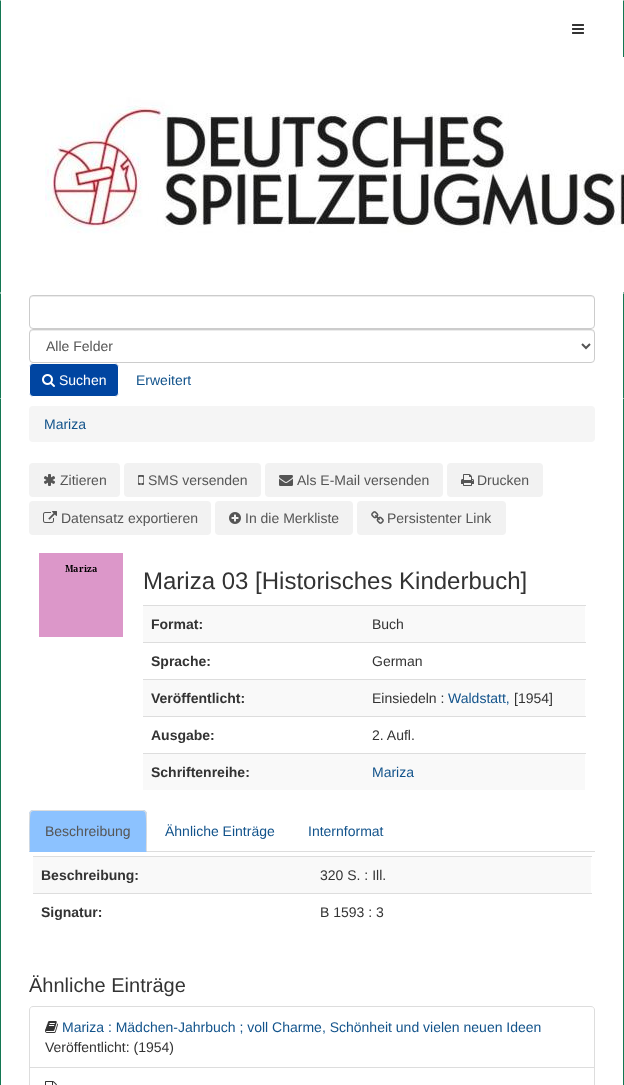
<svg xmlns="http://www.w3.org/2000/svg" width="624" height="1085" viewBox="0 0 624 1085">
  <style>
    .t1 { font: 14px Liberation Sans; fill: #555; }
    .t2 { font: 14px Liberation Sans; fill: #fff; }
    .t3 { font: 14px Liberation Sans; fill: #12538b; }
    .t4 { font: 24px Liberation Sans; fill: #333; }
    .t5 { font: bold 14px Liberation Sans; fill: #333; }
    .t6 { font: 14px Liberation Sans; fill: #333; }
    .t7 { font: 20px Liberation Sans; fill: #333; }
  </style>
  <rect width="100%" height="100%" fill="#fff"/>
  <path d="M624 0V293L623 292V1Z" fill="#137752"/>
  <path d="M0 293V0L1 1V292Z" fill="#137752"/>
  <image x="572" y="24" width="12" height="10" href="images/1.png"/>
  <image x="45" y="57" width="579" height="235" href="images/2.png"/>
  <path d="M624 293V399L623 398V294Z" fill="#137752"/>
  <path d="M0 399V293L1 294V398Z" fill="#137752"/>
  <path d="M33 297H591C593 297 594 298 594 300V299C594 297 593 296 591 296H33C31 296 30 297 30 299V300C30 298 31 297 33 297Z" fill="#ececec"/>
  <rect x="29.5" y="295.5" width="565" height="33" rx="3.5" fill="none" stroke="#ccc"/>
  <path d="M33 331H591C593 331 594 332 594 334V333C594 331 593 330 591 330H33C31 330 30 331 30 333V334C30 332 31 331 33 331Z" fill="#ececec"/>
  <rect x="29.5" y="329.5" width="565" height="33" rx="3.5" fill="none" stroke="#ccc"/>
  <path d="M582 344L586 348L590 344" fill="none" stroke="#555" stroke-width="2"/>
  <text x="46" y="351" class="t1">Alle Felder</text>
  <rect x="29.5" y="363.5" width="89" height="33" rx="3.5" fill="#0045a1" stroke="#fff"/>
  <image x="42" y="374" width="13" height="13" href="images/3.png"/>
  <text x="59" y="385" class="t2">Suchen</text>
  <text x="136" y="385" class="t3">Erweitert</text>
  <rect x="623" y="399" width="1" height="686" fill="#137752"/>
  <rect x="0" y="399" width="1" height="686" fill="#137752"/>
  <rect x="29" y="406" width="566" height="36" rx="4" fill="#f5f5f5"/>
  <text x="44" y="429" class="t3">Mariza</text>
  <rect x="29" y="463" width="91" height="34" rx="4" fill="#f2f2f2"/>
  <image x="44" y="474" width="11" height="12" href="images/4.png"/>
  <text x="60" y="485" class="t1">Zitieren</text>
  <rect x="124" y="463" width="137" height="34" rx="4" fill="#f2f2f2"/>
  <image x="138" y="475" width="6" height="10" href="images/5.png"/>
  <text x="148" y="485" class="t1">SMS versenden</text>
  <rect x="265" y="463" width="178" height="34" rx="4" fill="#f2f2f2"/>
  <image x="279" y="475" width="14" height="11" href="images/6.png"/>
  <text x="297" y="485" class="t1">Als E-Mail versenden</text>
  <rect x="447" y="463" width="96" height="34" rx="4" fill="#f2f2f2"/>
  <image x="461" y="474" width="13" height="12" href="images/7.png"/>
  <text x="477" y="485" class="t1">Drucken</text>
  <rect x="29" y="501" width="182" height="34" rx="4" fill="#f2f2f2"/>
  <image x="43" y="511" width="14" height="12" href="images/8.png"/>
  <text x="61" y="523" class="t1">Datensatz exportieren</text>
  <rect x="215" y="501" width="138" height="34" rx="4" fill="#f2f2f2"/>
  <image x="229" y="512" width="12" height="12" href="images/9.png"/>
  <text x="245" y="523" class="t1">In die Merkliste</text>
  <rect x="357" y="501" width="149" height="34" rx="4" fill="#f2f2f2"/>
  <image x="371" y="511" width="13" height="13" href="images/10.png"/>
  <text x="387" y="523" class="t1">Persistenter Link</text>
  <image x="39" y="553" width="84" height="84" href="images/11.png"/>
  <text x="143" y="589" class="t4">Mariza 03 [Historisches Kinderbuch]</text>
  <rect x="143" y="606" width="442" height="36" fill="#f9f9f9"/>
  <text x="151" y="629" class="t5">Format:</text>
  <rect x="143" y="605" width="443" height="1" fill="#ddd"/>
  <text x="372" y="629" class="t6">Buch</text>
  <text x="151" y="666" class="t5">Sprache:</text>
  <rect x="143" y="642" width="443" height="1" fill="#ddd"/>
  <text x="372" y="666" class="t6">German</text>
  <rect x="143" y="680" width="442" height="36" fill="#f9f9f9"/>
  <text x="151" y="703" class="t5">Veröffentlicht:</text>
  <rect x="143" y="679" width="443" height="1" fill="#ddd"/>
  <text x="372" y="703" class="t6">Einsiedeln :</text>
  <text x="448" y="703" class="t3">Waldstatt,</text>
  <text x="514" y="703" class="t6">[1954]</text>
  <text x="151" y="740" class="t5">Ausgabe:</text>
  <rect x="143" y="716" width="443" height="1" fill="#ddd"/>
  <text x="372" y="740" class="t6">2. Aufl.</text>
  <rect x="143" y="754" width="442" height="36" fill="#f9f9f9"/>
  <text x="151" y="777" class="t5">Schriftenreihe:</text>
  <rect x="143" y="753" width="443" height="1" fill="#ddd"/>
  <text x="372" y="777" class="t3">Mariza</text>
  <rect x="147" y="851" width="448" height="1" fill="#ddd"/>
  <path d="M33 810H143C145 810 147 812 147 814V852H29V814C29 812 31 810 33 810Z" fill="#8cc2ff"/>
  <path d="M33 810L30 811L31 812L33 811H143L145 812L146 811L143 810Z" fill="#ddd"/>
  <path d="M147 852V814C147 813 146 812 146 811L145 812C147 814 146 846 146 851Z" fill="#ddd"/>
  <path d="M29 852L30 851C30 846 29 814 31 812L30 811L29 814Z" fill="#ddd"/>
  <text x="45" y="836" class="t1">Beschreibung</text>
  <text x="165" y="836" class="t3">Ähnliche Einträge</text>
  <text x="308" y="836" class="t3">Internformat</text>
  <rect x="33" y="857" width="558" height="36" fill="#f9f9f9"/>
  <text x="41" y="880" class="t5">Beschreibung:</text>
  <rect x="33" y="856" width="559" height="1" fill="#ddd"/>
  <text x="320" y="880" class="t6">320 S. : Ill.</text>
  <text x="41" y="917" class="t5">Signatur:</text>
  <rect x="33" y="893" width="559" height="1" fill="#ddd"/>
  <text x="320" y="917" class="t6">B 1593 : 3</text>
  <text x="29" y="992" class="t7">Ähnliche Einträge</text>
  <path d="M33 1006.5H591C593 1006.5 594.5 1008 594.5 1010V1067.5H29.5V1010C29.5 1008 31 1006.5 33 1006.5Z" fill="none" stroke="#ddd"/>
  <image x="45" y="1021" width="13" height="12" href="images/12.png"/>
  <text x="62" y="1032" class="t3">Mariza : Mädchen-Jahrbuch ; voll Charme, Schönheit und vielen neuen Ideen</text>
  <text x="45" y="1052" class="t6">Veröffentlicht: (1954)</text>
  <rect x="29.5" y="1067.5" width="565" height="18" fill="none" stroke="#ddd"/>
  <image x="45" y="1081" width="12" height="4" href="images/13.png"/>
</svg>
